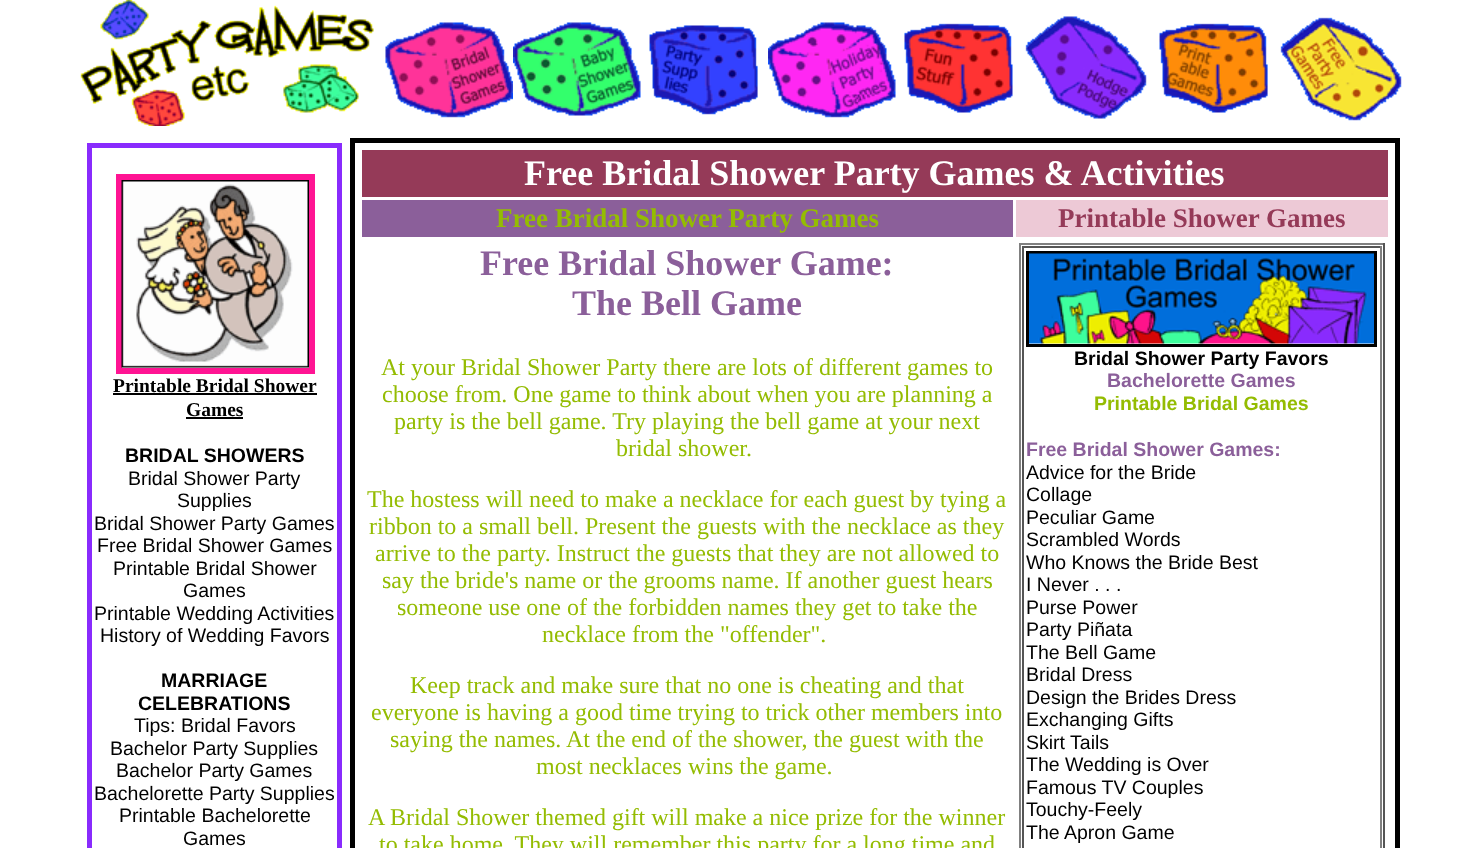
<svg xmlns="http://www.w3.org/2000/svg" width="1481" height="848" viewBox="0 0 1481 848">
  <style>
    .t1 { font: bold 19.5px Liberation Serif; fill: #000; }
    .t2 { font: bold 19.5px Liberation Sans; fill: #000; }
    .t3 { font: 19.5px Liberation Sans; fill: #000; }
    .t4 { font: bold 36px Liberation Serif; fill: #fff; }
    .t5 { font: bold 27px Liberation Serif; fill: #94bc02; }
    .t6 { font: bold 27px Liberation Serif; fill: #953a58; }
    .t7 { font: bold 36px Liberation Serif; fill: #8b5f9a; }
    .t8 { font: 24px Liberation Serif; fill: #94bc02; }
    .t9 { font: bold 19.5px Liberation Sans; fill: #8b5f9a; }
    .t10 { font: bold 19.5px Liberation Sans; fill: #94bc02; }
  </style>
  <rect width="100%" height="100%" fill="#fff"/>
  <image x="80" y="0" width="294" height="126" href="images/1.png"/>
  <image x="385" y="22" width="128" height="96" href="images/2.png"/>
  <image x="513" y="22" width="128" height="94" href="images/3.png"/>
  <image x="649" y="25" width="109" height="90" href="images/4.png"/>
  <image x="768" y="22" width="128" height="96" href="images/5.png"/>
  <image x="904" y="23" width="109" height="90" href="images/6.png"/>
  <image x="1025" y="16" width="122" height="103" href="images/7.png"/>
  <image x="1159" y="23" width="109" height="90" href="images/8.png"/>
  <image x="1280" y="17" width="122" height="104" href="images/9.png"/>
  <rect x="89.5" y="145.5" width="250" height="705" fill="none" stroke="#892bfd" stroke-width="5"/>
  <rect x="119" y="177" width="193" height="194" fill="none" stroke="#ff1493" stroke-width="6"/>
  <image x="121" y="180" width="188" height="188" href="images/10.png"/>
  <text x="113" y="392" class="t1">Printable Bridal Shower</text>
  <rect x="113" y="393" width="204" height="2" fill="#000"/>
  <text x="186" y="416" class="t1">Games</text>
  <rect x="186" y="417" width="57" height="2" fill="#000"/>
  <text x="125" y="462" class="t2">BRIDAL SHOWERS</text>
  <text x="128" y="485" class="t3">Bridal Shower Party</text>
  <text x="177" y="507" class="t3">Supplies</text>
  <text x="94" y="530" class="t3">Bridal Shower Party Games</text>
  <text x="97" y="552" class="t3">Free Bridal Shower Games</text>
  <text x="113" y="575" class="t3">Printable Bridal Shower</text>
  <text x="183" y="597" class="t3">Games</text>
  <text x="94" y="620" class="t3">Printable Wedding Activities</text>
  <text x="100" y="642" class="t3">History of Wedding Favors</text>
  <text x="161" y="687" class="t2">MARRIAGE</text>
  <text x="138" y="710" class="t2">CELEBRATIONS</text>
  <text x="134" y="732" class="t3">Tips: Bridal Favors</text>
  <text x="110" y="755" class="t3">Bachelor Party Supplies</text>
  <text x="116" y="777" class="t3">Bachelor Party Games</text>
  <text x="94" y="800" class="t3">Bachelorette Party Supplies</text>
  <text x="119" y="822" class="t3">Printable Bachelorette</text>
  <text x="183" y="845" class="t3">Games</text>
  <rect x="352.5" y="140.5" width="1045" height="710" fill="none" stroke="#000" stroke-width="5"/>
  <rect x="362" y="150" width="1026" height="47" fill="#953a58"/>
  <text x="524" y="185" class="t4">Free Bridal Shower Party Games &amp; Activities</text>
  <rect x="362" y="200" width="651" height="37" fill="#8b5f9a"/>
  <text x="496" y="227" class="t5">Free Bridal Shower Party Games</text>
  <rect x="1016" y="200" width="372" height="37" fill="#edc9d6"/>
  <text x="1058" y="227" class="t6">Printable Shower Games</text>
  <text x="480" y="275" class="t7">Free Bridal Shower Game:</text>
  <text x="572" y="315" class="t7">The Bell Game</text>
  <text x="381" y="375" class="t8">At your Bridal Shower Party there are lots of different games to</text>
  <text x="382" y="402" class="t8">choose from. One game to think about when you are planning a</text>
  <text x="394" y="429" class="t8">party is the bell game. Try playing the bell game at your next</text>
  <text x="616" y="456" class="t8">bridal shower.</text>
  <text x="367" y="507" class="t8">The hostess will need to make a necklace for each guest by tying a</text>
  <text x="369" y="534" class="t8">ribbon to a small bell. Present the guests with the necklace as they</text>
  <text x="375" y="561" class="t8">arrive to the party. Instruct the guests that they are not allowed to</text>
  <text x="382" y="588" class="t8">say the bride's name or the grooms name. If another guest hears</text>
  <text x="397" y="615" class="t8">someone use one of the forbidden names they get to take the</text>
  <text x="542" y="642" class="t8">necklace from the "offender".</text>
  <text x="410" y="693" class="t8">Keep track and make sure that no one is cheating and that</text>
  <text x="371" y="720" class="t8">everyone is having a good time trying to trick other members into</text>
  <text x="390" y="747" class="t8">saying the names. At the end of the shower, the guest with the</text>
  <text x="536" y="774" class="t8">most necklaces wins the game.</text>
  <text x="368" y="825" class="t8">A Bridal Shower themed gift will make a nice prize for the winner</text>
  <text x="379" y="852" class="t8">to take home. They will remember this party for a long time and</text>
  <rect x="1019" y="243" width="366" height="2" fill="#808080"/>
  <rect x="1383" y="243" width="2" height="605" fill="#555"/>
  <rect x="1019" y="243" width="2" height="605" fill="#808080"/>
  <rect x="1022" y="246" width="360" height="2" fill="#555"/>
  <rect x="1380" y="246" width="2" height="602" fill="#808080"/>
  <rect x="1022" y="246" width="2" height="602" fill="#555"/>
  <rect x="1027.5" y="252.5" width="348" height="93" fill="none" stroke="#000" stroke-width="3"/>
  <image x="1029" y="253" width="345" height="91" href="images/11.png"/>
  <text x="1074" y="365" class="t2">Bridal Shower Party Favors</text>
  <text x="1107" y="387" class="t9">Bachelorette Games</text>
  <text x="1094" y="410" class="t10">Printable Bridal Games</text>
  <text x="1026" y="456" class="t9">Free Bridal Shower Games:</text>
  <text x="1026" y="479" class="t3">Advice for the Bride</text>
  <text x="1026" y="501" class="t3">Collage</text>
  <text x="1026" y="524" class="t3">Peculiar Game</text>
  <text x="1026" y="546" class="t3">Scrambled Words</text>
  <text x="1026" y="569" class="t3">Who Knows the Bride Best</text>
  <text x="1026" y="591" class="t3">I Never . . .</text>
  <text x="1026" y="614" class="t3">Purse Power</text>
  <text x="1026" y="636" class="t3">Party Piñata</text>
  <text x="1026" y="659" class="t3">The Bell Game</text>
  <text x="1026" y="681" class="t3">Bridal Dress</text>
  <text x="1026" y="704" class="t3">Design the Brides Dress</text>
  <text x="1026" y="726" class="t3">Exchanging Gifts</text>
  <text x="1026" y="749" class="t3">Skirt Tails</text>
  <text x="1026" y="771" class="t3">The Wedding is Over</text>
  <text x="1026" y="794" class="t3">Famous TV Couples</text>
  <text x="1026" y="816" class="t3">Touchy-Feely</text>
  <text x="1026" y="839" class="t3">The Apron Game</text>
</svg>
